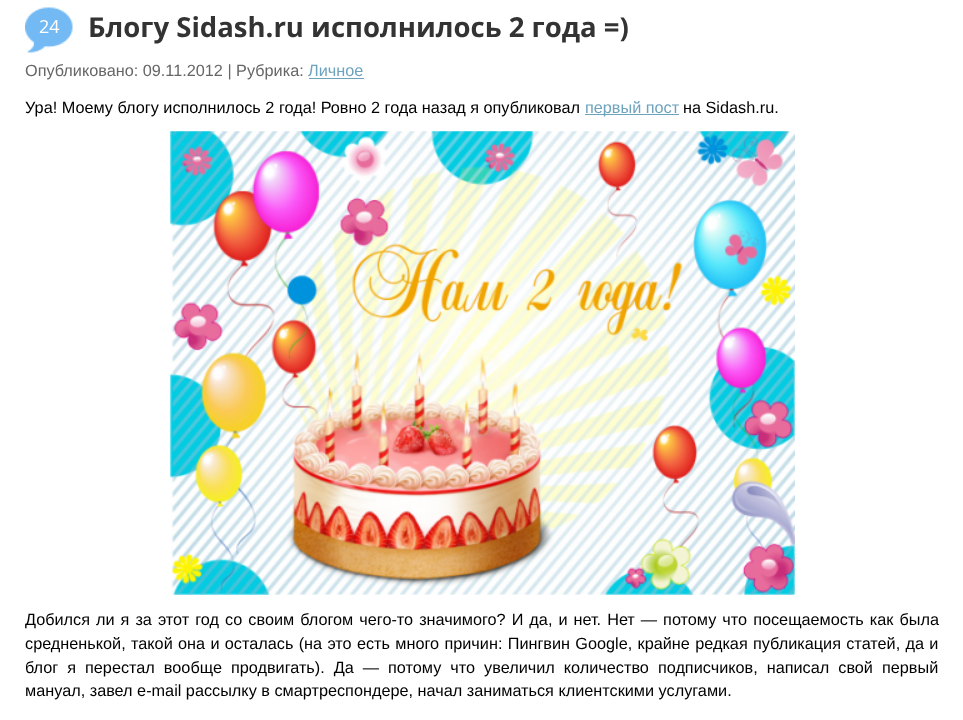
<svg xmlns="http://www.w3.org/2000/svg" width="963" height="720" viewBox="0 0 963 720">
  <style>
    .t1 { font: 18px Open Sans; fill: #fff; }
    .t2 { font: bold 27.5px Open Sans; fill: #333; }
    .t3 { font: 16.25px Liberation Sans; fill: #666; }
    .t4 { font: 16.25px Liberation Sans; fill: #6da3bd; }
    .t5 { font: 16.25px Liberation Sans; fill: #000; }
  </style>
  <rect width="100%" height="100%" fill="#fff"/>
  <image x="25" y="7" width="48" height="46" href="images/1.png"/>
  <text x="39" y="33" class="t1">24</text>
  <text x="88" y="37" class="t2">Блогу Sidash.ru исполнилось 2 года =)</text>
  <text x="25" y="76" class="t3">Опубликовано: 09.11.2012 | Рубрика:</text>
  <text x="308" y="76" class="t4">Личное</text>
  <rect x="309" y="78" width="55" height="1" fill="#6da3bd"/>
  <text x="25" y="113" class="t5">Ура! Моему блогу исполнилось 2 года! Ровно 2 года назад я опубликовал</text>
  <rect x="585" y="114" width="94" height="1" fill="#6da3bd"/>
  <text x="585" y="113" class="t4">первый пост</text>
  <text x="683" y="113" class="t5">на Sidash.ru.</text>
  <image x="170" y="131" width="625" height="464" href="images/2.png"/>
  <text x="25" y="625" word-spacing="1.5" class="t5">Добился ли я за этот год со своим блогом чего-то значимого? И да, и нет. Нет — потому что посещаемость как была</text>
  <text x="25" y="649" word-spacing="0.8" class="t5">средненькой, такой она и осталась (на это есть много причин: Пингвин Google, крайне редкая публикация статей, да и</text>
  <text x="25" y="673" word-spacing="4.5" class="t5">блог я перестал вообще продвигать). Да — потому что увеличил количество подписчиков, написал свой первый</text>
  <text x="25" y="696" class="t5">мануал, завел e-mail рассылку в смартреспондере, начал заниматься клиентскими услугами.</text>
</svg>
